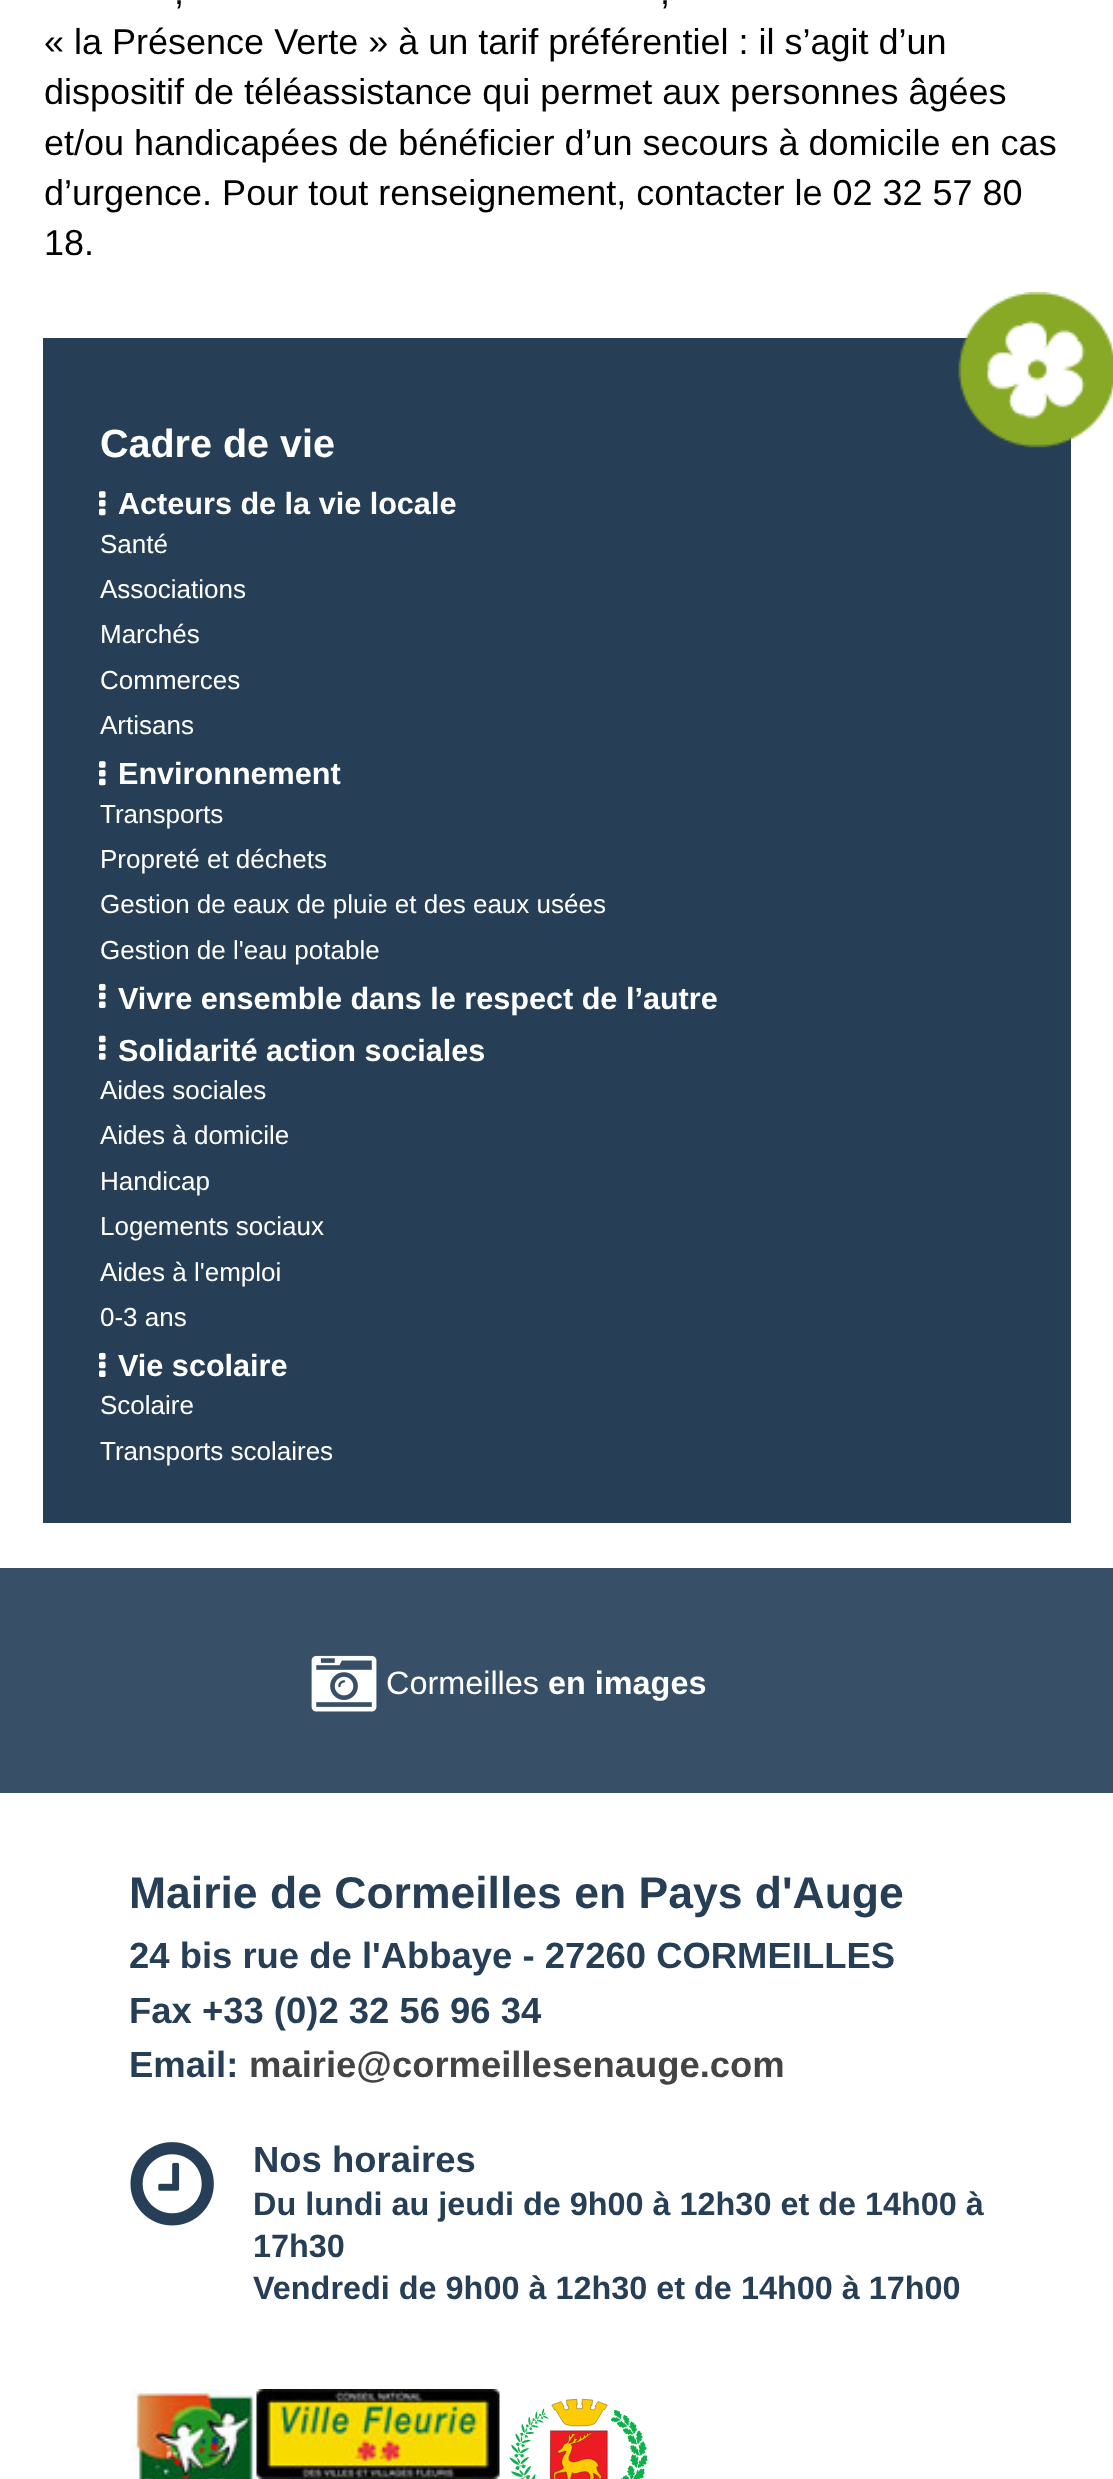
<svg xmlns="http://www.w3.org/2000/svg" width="1113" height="2479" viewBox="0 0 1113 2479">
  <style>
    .t1 { font: 36px Liberation Sans; fill: #000; }
    .t2 { font: bold 39.5px Liberation Sans; fill: #fff; }
    .t3 { font: bold 30.6px Liberation Sans; fill: #fff; }
    .t4 { font: 26px Liberation Sans; fill: #fff; }
    .t5 { font: 32.4px Liberation Sans; fill: #fff; }
    .t6 { font: bold 32.4px Liberation Sans; fill: #fff; }
    .t7 { font: bold 44.5px Liberation Sans; fill: #263f56; }
    .t8 { font: bold 36.45px Liberation Sans; fill: #263f56; }
    .t9 { font: bold 36.45px Liberation Sans; fill: #444; }
    .t10 { font: bold 32.4px Liberation Sans; fill: #263f56; }
  </style>
  <rect width="100%" height="100%" fill="#fff"/>
  <text x="174" y="4" class="t1">,</text>
  <text x="660" y="4" class="t1">,</text>
  <text x="44" y="54" class="t1">« la Présence Verte » à un tarif préférentiel : il s’agit d’un</text>
  <text x="44" y="104" class="t1">dispositif de téléassistance qui permet aux personnes âgées</text>
  <text x="44" y="155" class="t1">et/ou handicapées de bénéficier d’un secours à domicile en cas</text>
  <text x="44" y="205" class="t1">d’urgence. Pour tout renseignement, contacter le 02 32 57 80</text>
  <text x="44" y="255" class="t1">18.</text>
  <rect x="43" y="338" width="1028" height="1185" fill="#263f56"/>
  <text x="100" y="457" class="t2">Cadre de vie</text>
  <image x="958" y="292" width="155" height="156" href="images/1.png"/>
  <image x="99" y="491" width="7" height="25" href="images/2.png"/>
  <text x="118" y="514" class="t3">Acteurs de la vie locale</text>
  <text x="100" y="553" class="t4">Santé</text>
  <text x="100" y="598" class="t4">Associations</text>
  <text x="100" y="643" class="t4">Marchés</text>
  <text x="100" y="689" class="t4">Commerces</text>
  <text x="100" y="734" class="t4">Artisans</text>
  <image x="99" y="761" width="7" height="25" href="images/2.png"/>
  <text x="118" y="784" class="t3">Environnement</text>
  <text x="100" y="823" class="t4">Transports</text>
  <text x="100" y="868" class="t4">Propreté et déchets</text>
  <text x="100" y="913" class="t4">Gestion de eaux de pluie et des eaux usées</text>
  <text x="100" y="959" class="t4">Gestion de l'eau potable</text>
  <image x="99" y="983" width="7" height="25" href="images/3.png"/>
  <text x="118" y="1009" class="t3">Vivre ensemble dans le respect de l’autre</text>
  <image x="99" y="1035" width="7" height="25" href="images/4.png"/>
  <text x="118" y="1061" class="t3">Solidarité action sociales</text>
  <text x="100" y="1099" class="t4">Aides sociales</text>
  <text x="100" y="1144" class="t4">Aides à domicile</text>
  <text x="100" y="1190" class="t4">Handicap</text>
  <text x="100" y="1235" class="t4">Logements sociaux</text>
  <text x="100" y="1281" class="t4">Aides à l'emploi</text>
  <text x="100" y="1326" class="t4">0-3 ans</text>
  <image x="99" y="1352" width="7" height="25" href="images/3.png"/>
  <text x="118" y="1376" class="t3">Vie scolaire</text>
  <text x="100" y="1414" class="t4">Scolaire</text>
  <text x="100" y="1460" class="t4">Transports scolaires</text>
  <rect x="0" y="1568" width="1113" height="225" fill="#375067"/>
  <image x="311" y="1655" width="66" height="57" href="images/5.png"/>
  <text x="386" y="1694" class="t5">Cormeilles</text>
  <text x="548" y="1694" class="t6">en images</text>
  <text x="129" y="1908" class="t7">Mairie de Cormeilles en Pays d'Auge</text>
  <text x="129" y="1968" class="t8">24 bis rue de l'Abbaye - 27260 CORMEILLES</text>
  <text x="129" y="2023" class="t8">Fax +33 (0)2 32 56 96 34</text>
  <text x="129" y="2077" class="t8">Email:</text>
  <text x="249" y="2077" class="t9">mairie@cormeillesenauge.com</text>
  <image x="130" y="2142" width="84" height="84" href="images/6.png"/>
  <text x="253" y="2172" class="t8">Nos horaires</text>
  <text x="253" y="2215" class="t10">Du lundi au jeudi de 9h00 à 12h30 et de 14h00 à</text>
  <text x="253" y="2257" class="t10">17h30</text>
  <text x="253" y="2299" class="t10">Vendredi de 9h00 à 12h30 et de 14h00 à 17h00</text>
  <image x="130" y="2389" width="127" height="90" href="images/7.png"/>
  <image x="256" y="2389" width="244" height="90" href="images/8.png"/>
  <image x="509" y="2398" width="139" height="81" href="images/9.png"/>
</svg>
